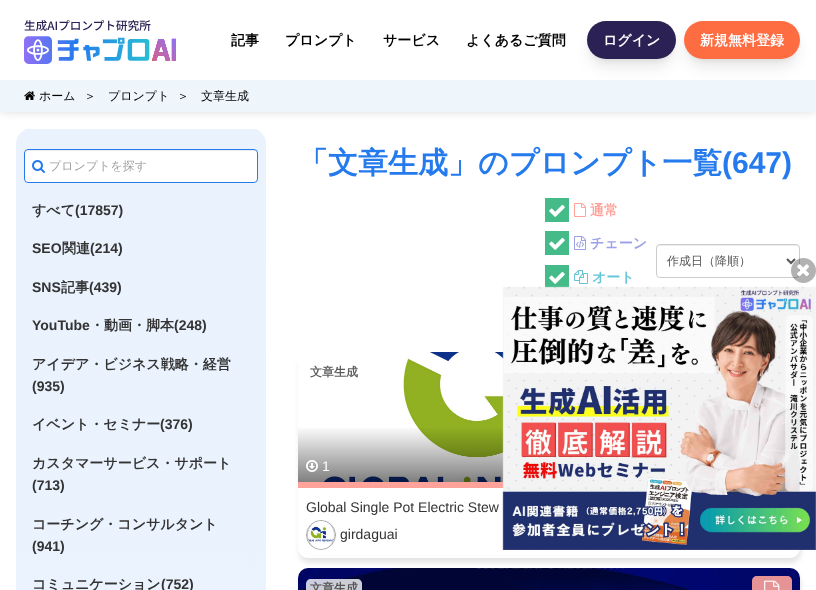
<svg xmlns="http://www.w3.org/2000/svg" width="816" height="590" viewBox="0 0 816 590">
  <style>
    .t1 { font: bold 14px WenQuanYi Zen Hei; fill: #000; }
    .t2 { font: bold 14px WenQuanYi Zen Hei; fill: #fff; }
    .t3 { font: 500 12px WenQuanYi Zen Hei; fill: #000; }
    .t4 { font: 500 12px WenQuanYi Zen Hei; fill: #a3a3a3; }
    .t5 { font: bold 14px WenQuanYi Zen Hei; fill: #333; }
    .t6 { font: bold 14px Liberation Sans; fill: #333; }
    .t7 { font: bold 30px WenQuanYi Zen Hei; fill: #257bed; }
    .t8 { font: bold 30px Liberation Sans; fill: #257bed; }
    .t9 { font: bold 14px WenQuanYi Zen Hei; fill: #ffa29a; }
    .t10 { font: bold 14px WenQuanYi Zen Hei; fill: #9ca1e6; }
    .t11 { font: bold 14px WenQuanYi Zen Hei; fill: #64c5d9; }
    .t12 { font: 500 12px WenQuanYi Zen Hei; fill: #555; }
    .t13 { font: bold 12px WenQuanYi Zen Hei; fill: #5c5c5c; }
    .t14 { font: 14px Liberation Sans; fill: #fff; }
    .t15 { font: 14px Liberation Sans; fill: #333; }
    .t16 { font: bold 12px WenQuanYi Zen Hei; fill: #555; }
  </style>
  <defs>
    <clipPath id="clip1"><rect x="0" y="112" width="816" height="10"/></clipPath>
    <clipPath id="clip2"><path d="M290 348H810V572H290ZM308 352H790C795.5 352 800 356.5 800 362V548C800 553.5 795.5 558 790 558H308C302.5 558 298 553.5 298 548V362C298 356.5 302.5 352 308 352Z" clip-rule="evenodd"/></clipPath>
    <linearGradient id="g1" gradientUnits="userSpaceOnUse" x1="549" y1="427" x2="549" y2="482"><stop offset="0" stop-color="#000" stop-opacity="0.01"/><stop offset="1" stop-color="#000" stop-opacity="0.5"/></linearGradient>
    <linearGradient id="g2" gradientUnits="userSpaceOnUse" x1="141" y1="128" x2="141" y2="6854"><stop offset="0" stop-color="#eaf2fe"/><stop offset="1" stop-color="#eafbfa"/></linearGradient>
    <clipPath id="clip3"><rect x="16" y="128" width="250" height="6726" rx="16"/></clipPath>
    <clipPath id="clip4"><rect x="307" y="521" width="28" height="28" rx="14"/></clipPath>
  </defs>
  <rect width="100%" height="100%" fill="#fff"/>
  <g clip-path="url(#clip1)">
    <rect x="0" y="0" width="816" height="112" fill="#ddd" filter="blur(5px)"/>
  </g>
  <image x="24" y="20" width="152" height="44" href="images/1.png"/>
  <text x="231" y="45" class="t1">記事</text>
  <text x="285" y="45" class="t1">プロンプト</text>
  <text x="383" y="45" class="t1">サービス</text>
  <text x="466" y="45" class="t1">よくあるご質問</text>
  <rect x="591" y="29" width="81" height="30" rx="15" fill="#0000001a" filter="blur(3px)"/>
  <rect x="0" y="80" width="816" height="32" fill="#eef6fb"/>
  <rect x="590" y="34" width="83" height="32" rx="16" fill="#0000001a" filter="blur(7.5px)"/>
  <rect x="587" y="21" width="89" height="38" rx="19" fill="#2b2154"/>
  <text x="603" y="45" class="t2">ログイン</text>
  <rect x="688" y="29" width="108" height="30" rx="15" fill="#0000001a" filter="blur(3px)"/>
  <rect x="687" y="34" width="110" height="32" rx="16" fill="#0000001a" filter="blur(7.5px)"/>
  <rect x="684" y="21" width="116" height="38" rx="19" fill="#fe6c42"/>
  <text x="700" y="45" class="t2">新規無料登録</text>
  <image x="24" y="91" width="11" height="9" href="images/2.png"/>
  <text x="39" y="100" class="t3">ホーム</text>
  <text x="84" y="100" class="t3">＞</text>
  <text x="108" y="100" class="t3">プロンプト</text>
  <text x="177" y="100" class="t3">＞</text>
  <text x="201" y="100" class="t3">文章生成</text>
  <path d="M660 246H796C798 246 799 247 799 249V248C799 246 798 245 796 245H660C658 245 657 246 657 248V249C657 247 658 246 660 246Z" fill="#ececec"/>
  <rect x="656.5" y="244.5" width="143" height="33" rx="3.5" fill="none" stroke="#ccc"/>
  <path d="M787 259L791 263L795 259" fill="none" stroke="#555" stroke-width="2"/>
  <circle cx="803.5" cy="270.5" r="12.5" fill="#0000004d"/>
  <image x="797" y="264" width="12" height="13" href="images/3.png"/>
  <rect x="545" y="265" width="24" height="23" fill="#4b8"/>
  <g clip-path="url(#clip2)">
    <rect x="299" y="357" width="502" height="206" rx="10" fill="#0000001a" filter="blur(2.5px)"/>
  </g>
  <image x="322" y="352" width="182" height="130" href="images/10.png"/>
  <rect x="298" y="428" width="206" height="54" fill="url(#g1)"/>
  <rect x="298" y="482" width="206" height="6" fill="#ffa29a"/>
  <image x="502" y="286" width="314" height="264" href="images/4.png"/>
  <path d="M32 128H250C259 128 266 135 266 144V590H16V144C16 135 23 128 32 128Z" fill="url(#g2)"/>
  <g clip-path="url(#clip3)">
    <rect x="26" y="128" width="230" height="1" fill="#fff"/>
  </g>
  <rect x="24" y="149" width="234" height="34" rx="4" fill="#fff"/>
  <path d="M28 151H254C256 151 257 152 257 154C257 152 256 150 254 150H28C26 150 25 152 25 154C25 152 26 151 28 151Z" fill="#ececec"/>
  <rect x="24.5" y="149.5" width="233" height="33" rx="3.5" fill="none" stroke="#257bed"/>
  <image x="32" y="160" width="13" height="13" href="images/5.png"/>
  <text x="49" y="170" class="t4">プロンプトを探す</text>
  <text x="32" y="215" class="t5">すべて</text>
  <text x="75" y="215" class="t6">(17857)</text>
  <text x="32" y="253" class="t6">SEO</text>
  <text x="62" y="253" class="t5">関連</text>
  <text x="90" y="253" class="t6">(214)</text>
  <text x="32" y="292" class="t6">SNS</text>
  <text x="61" y="292" class="t5">記事</text>
  <text x="89" y="292" class="t6">(439)</text>
  <text x="32" y="330" class="t6">YouTube</text>
  <text x="90" y="330" class="t5">・動画・脚本</text>
  <text x="174" y="330" class="t6">(248)</text>
  <text x="32" y="369" class="t5">アイデア・ビジネス戦略・経営</text>
  <text x="32" y="391" class="t6">(935)</text>
  <text x="32" y="429" class="t5">イベント・セミナー</text>
  <text x="160" y="429" class="t6">(376)</text>
  <text x="32" y="468" class="t5">カスタマーサービス・サポート</text>
  <text x="32" y="490" class="t6">(713)</text>
  <text x="32" y="529" class="t5">コーチング・コンサルタント</text>
  <text x="32" y="551" class="t6">(941)</text>
  <text x="32" y="589" class="t5">コミュニケーション</text>
  <text x="161" y="589" class="t6">(752)</text>
  <text x="298" y="173" class="t7">「文章生成」のプロンプト一覧</text>
  <text x="722" y="173" class="t8">(647)</text>
  <rect x="545" y="198" width="24" height="24" fill="#4b8"/>
  <image x="549" y="204" width="16" height="13" href="images/6.png"/>
  <image x="574" y="203" width="12" height="14" href="images/7.png"/>
  <text x="590" y="215" class="t9">通常</text>
  <rect x="545" y="231" width="24" height="24" fill="#4b8"/>
  <image x="549" y="237" width="16" height="13" href="images/6.png"/>
  <image x="574" y="236" width="12" height="14" href="images/8.png"/>
  <text x="590" y="248" class="t10">チェーン</text>
  <image x="549" y="271" width="16" height="13" href="images/6.png"/>
  <image x="574" y="270" width="14" height="14" href="images/9.png"/>
  <text x="592" y="282" class="t11">オート</text>
  <text x="667" y="265" class="t12">作成日（降順）</text>
  <text x="310" y="376" class="t13">文章生成</text>
  <image x="306" y="460" width="12" height="12" href="images/11.png"/>
  <text x="322" y="471" class="t14">1</text>
  <text x="306" y="512" class="t15">Global Single Pot Electric Stew</text>
  <circle cx="321" cy="535" r="14.5" fill="none" stroke="#aaa"/>
  <g clip-path="url(#clip4)">
    <path d="M321 520.5C338.5 520.5 338.5 549.5 321 549.5C303.5 549.5 303.5 520.5 321 520.5Z" fill="none" stroke="#aaa"/>
  </g>
  <image x="308" y="521" width="26" height="28" href="images/12.png"/>
  <text x="340" y="539" class="t15">girdaguai</text>
  <rect x="299" y="573" width="502" height="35" rx="10" fill="#0000001a" filter="blur(2.5px)"/>
  <image x="298" y="568" width="502" height="22" href="images/13.png"/>
  <path d="M311 579H357C360 579 362 581 362 584V590H306V584C306 581 308 579 311 579Z" fill="#ffffffcc"/>
  <text x="310" y="592" class="t16">文章生成</text>
  <path d="M757 576H787C790 576 792 578 792 581V590H752V581C752 578 754 576 757 576Z" fill="#e69395"/>
  <image x="764" y="580" width="16" height="10" href="images/14.png"/>
</svg>
